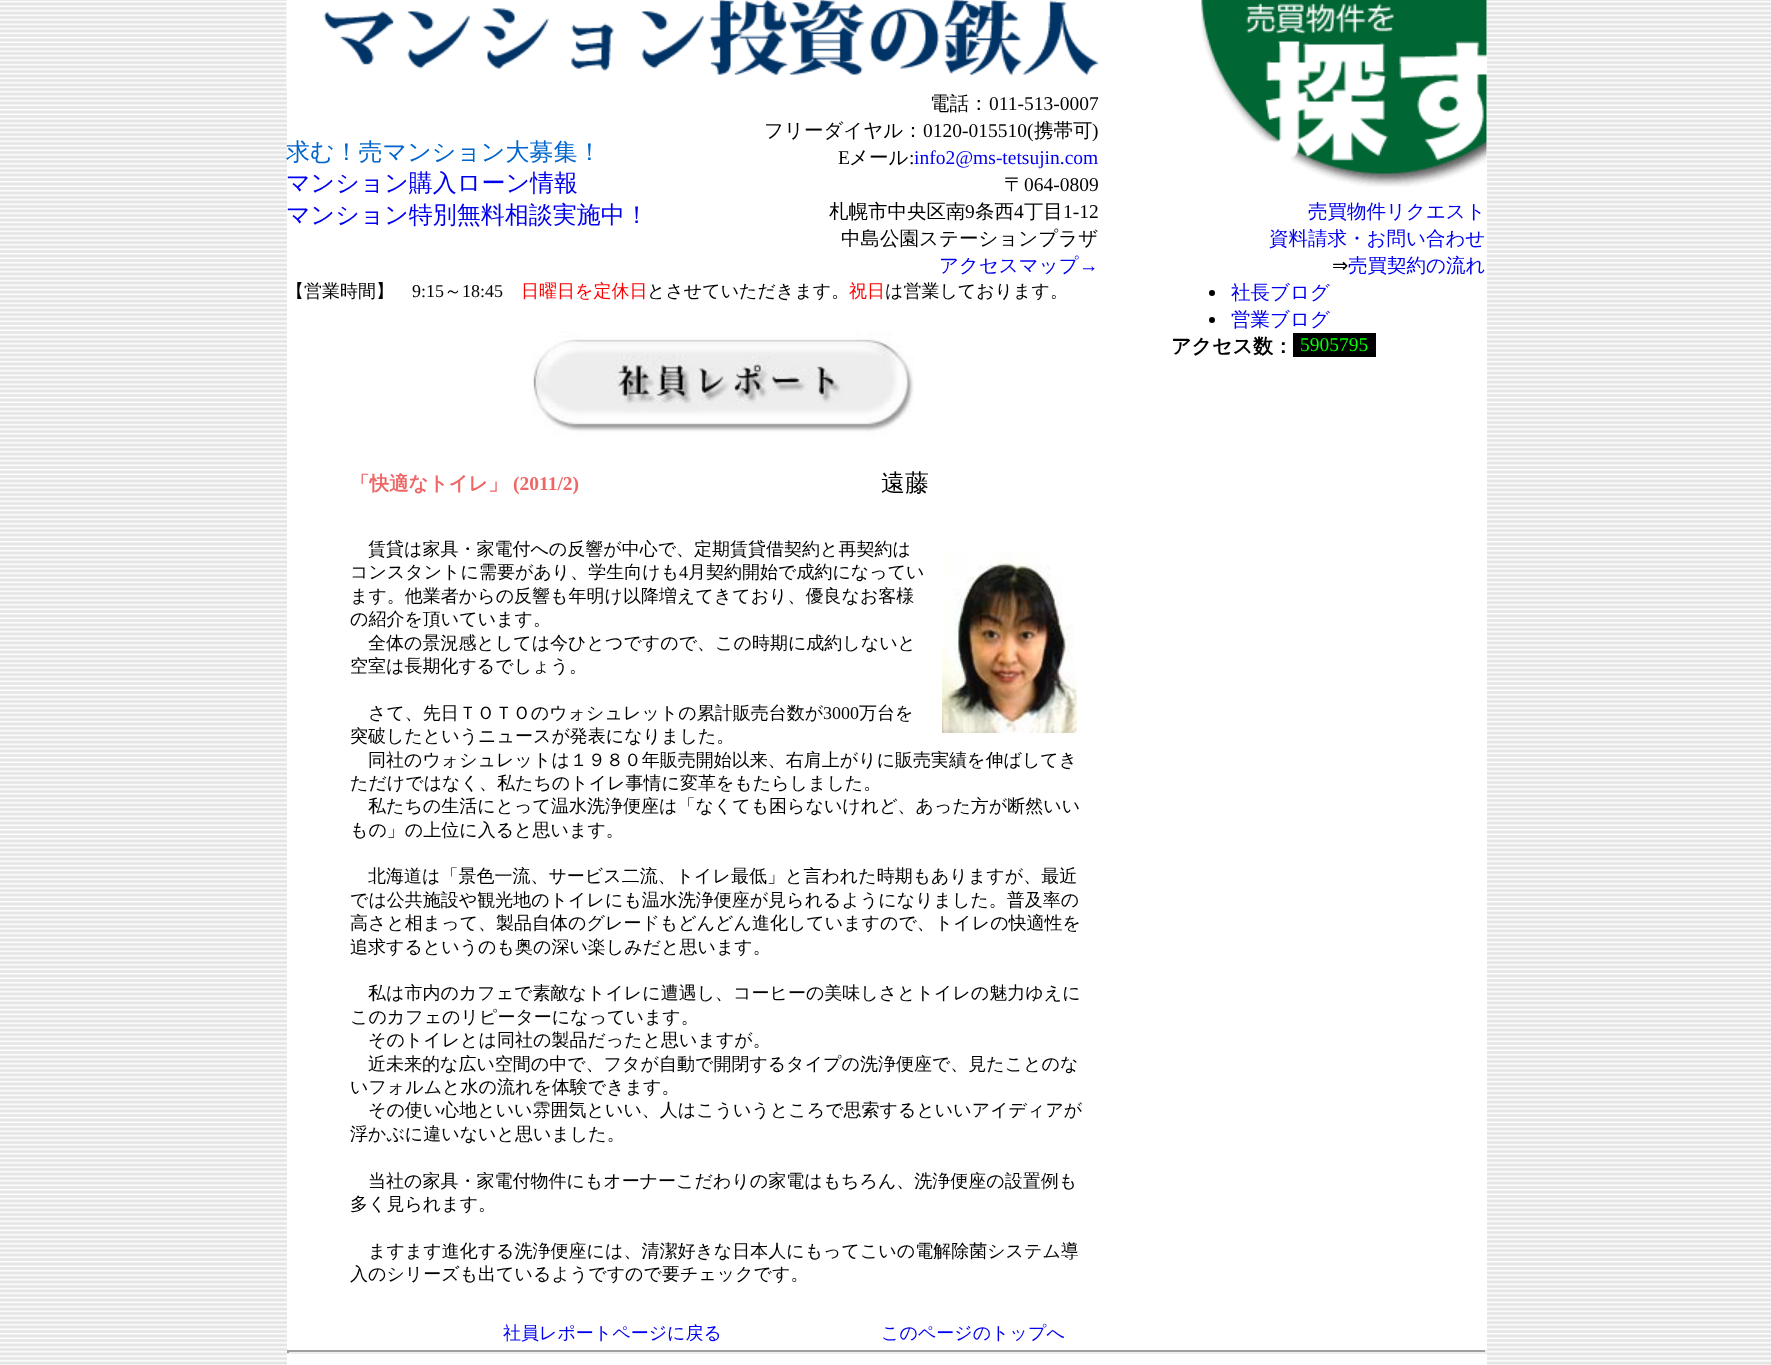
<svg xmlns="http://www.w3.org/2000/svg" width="1771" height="1365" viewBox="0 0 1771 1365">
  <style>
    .t1 { font: 500 24px WenQuanYi Zen Hei; fill: #06c; }
    .t2 { font: 500 24px WenQuanYi Zen Hei; fill: #00e; }
    .t3 { font: 500 19.5px WenQuanYi Zen Hei; fill: #000; }
    .t4 { font: 19.5px Liberation Serif; fill: #000; }
    .t5 { font: 19.5px Liberation Serif; fill: #00e; }
    .t6 { font: 500 19.5px WenQuanYi Zen Hei; fill: #00e; }
    .t7 { font: 500 18px WenQuanYi Zen Hei; fill: #000; }
    .t8 { font: 18px Liberation Serif; fill: #000; }
    .t9 { font: 500 18px WenQuanYi Zen Hei; fill: #f00; }
    .t10 { font: bold 19.5px WenQuanYi Zen Hei; fill: #e66; }
    .t11 { font: bold 19.5px Liberation Serif; fill: #e66; }
    .t12 { font: 500 24px WenQuanYi Zen Hei; fill: #000; }
    .t13 { font: 500 18px WenQuanYi Zen Hei; fill: #00e; }
    .t14 { font: 19.5px DejaVu Sans; fill: #000; }
    .t15 { font: bold 20px WenQuanYi Zen Hei; fill: #000; }
    .t16 { font: 19.5px Liberation Serif; fill: #0f0; }
  </style>
  <rect width="100%" height="100%" fill="#fff"/>
  <image x="0" y="0" width="1771" height="1365" href="images/1.png"/>
  <rect x="287" y="0" width="1200" height="1365" fill="#fff"/>
  <image x="286" y="0" width="813" height="90" href="images/2.png"/>
  <text x="286" y="160" class="t1">求む！売マンション大募集！</text>
  <text x="286" y="191" class="t2">マンション購入ローン情報</text>
  <text x="286" y="223" class="t2">マンション特別無料相談実施中！</text>
  <text x="930" y="110" class="t3">電話：</text>
  <text x="989" y="110" class="t4">011-513-0007</text>
  <text x="764" y="137" class="t3">フリーダイヤル：</text>
  <text x="923" y="137" class="t4">0120-015510(</text>
  <text x="1034" y="137" class="t3">携帯可</text>
  <text x="1092" y="137" class="t4">)</text>
  <text x="838" y="164" class="t4">E</text>
  <text x="849" y="164" class="t3">メール</text>
  <text x="909" y="164" class="t4">:</text>
  <text x="914" y="164" class="t5">info2@ms-tetsujin.com</text>
  <text x="1004" y="191" class="t3">〒</text>
  <text x="1024" y="191" class="t4">064-0809</text>
  <text x="829" y="218" class="t3">札幌市中央区南</text>
  <text x="965" y="218" class="t4">9</text>
  <text x="975" y="218" class="t3">条西</text>
  <text x="1014" y="218" class="t4">4</text>
  <text x="1024" y="218" class="t3">丁目</text>
  <text x="1063" y="218" class="t4">1-12</text>
  <text x="841" y="245" class="t3">中島公園ステーションプラザ</text>
  <text x="939" y="272" class="t6">アクセスマップ</text>
  <text x="1079" y="272" class="t5">→</text>
  <text x="286" y="297" class="t7">【営業時間】</text>
  <text x="412" y="297" class="t8">9:15</text>
  <text x="444" y="297" class="t7">～</text>
  <text x="462" y="297" class="t8">18:45</text>
  <text x="521" y="297" class="t9">日曜日を定休日</text>
  <text x="647" y="297" class="t7">とさせていただきます。</text>
  <text x="849" y="297" class="t9">祝日</text>
  <text x="885" y="297" class="t7">は営業しております。</text>
  <image x="532" y="331" width="382" height="105" href="images/3.png"/>
  <text x="350" y="490" class="t10">「快適なトイレ」</text>
  <text x="513" y="490" class="t11">(2011/2)</text>
  <text x="881" y="491" class="t12">遠藤</text>
  <text x="368" y="555" class="t7">賃貸は家具・家電付への反響が中心で、定期賃貸借契約と再契約は</text>
  <text x="350" y="578" class="t7">コンスタントに需要があり、学生向けも</text>
  <text x="679" y="578" class="t8">4</text>
  <text x="688" y="578" class="t7">月契約開始で成約になってい</text>
  <text x="350" y="602" class="t7">ます。他業者からの反響も年明け以降増えてきており、優良なお客様</text>
  <text x="350" y="625" class="t7">の紹介を頂いています。</text>
  <text x="368" y="649" class="t7">全体の景況感としては今ひとつですので、この時期に成約しないと</text>
  <text x="350" y="672" class="t7">空室は長期化するでしょう。</text>
  <text x="368" y="719" class="t7">さて、先日ＴＯＴＯのウォシュレットの累計販売台数が</text>
  <text x="823" y="719" class="t8">3000</text>
  <text x="859" y="719" class="t7">万台を</text>
  <text x="350" y="742" class="t7">突破したというニュースが発表になりました。</text>
  <text x="368" y="766" class="t7">同社のウォシュレットは１９８０年販売開始以来、右肩上がりに販売実績を伸ばしてき</text>
  <text x="350" y="789" class="t7">ただけではなく、私たちのトイレ事情に変革をもたらしました。</text>
  <text x="368" y="812" class="t7">私たちの生活にとって温水洗浄便座は「なくても困らないけれど、あった方が断然いい</text>
  <text x="350" y="836" class="t7">もの」の上位に入ると思います。</text>
  <text x="368" y="882" class="t7">北海道は「景色一流、サービス二流、トイレ最低」と言われた時期もありますが、最近</text>
  <text x="350" y="906" class="t7">では公共施設や観光地のトイレにも温水洗浄便座が見られるようになりました。普及率の</text>
  <text x="350" y="929" class="t7">高さと相まって、製品自体のグレードもどんどん進化していますので、トイレの快適性を</text>
  <text x="350" y="953" class="t7">追求するというのも奥の深い楽しみだと思います。</text>
  <text x="368" y="999" class="t7">私は市内のカフェで素敵なトイレに遭遇し、コーヒーの美味しさとトイレの魅力ゆえに</text>
  <text x="350" y="1023" class="t7">このカフェのリピーターになっています。</text>
  <text x="368" y="1046" class="t7">そのトイレとは同社の製品だったと思いますが。</text>
  <text x="368" y="1070" class="t7">近未来的な広い空間の中で、フタが自動で開閉するタイプの洗浄便座で、見たことのな</text>
  <text x="350" y="1093" class="t7">いフォルムと水の流れを体験できます。</text>
  <text x="368" y="1116" class="t7">その使い心地といい雰囲気といい、人はこういうところで思索するといいアイディアが</text>
  <text x="350" y="1140" class="t7">浮かぶに違いないと思いました。</text>
  <text x="368" y="1187" class="t7">当社の家具・家電付物件にもオーナーこだわりの家電はもちろん、洗浄便座の設置例も</text>
  <text x="350" y="1210" class="t7">多く見られます。</text>
  <text x="368" y="1257" class="t7">ますます進化する洗浄便座には、清潔好きな日本人にもってこいの電解除菌システム導</text>
  <text x="350" y="1280" class="t7">入のシリーズも出ているようですので要チェックです。</text>
  <image x="942" y="553" width="135" height="180" href="images/4.png"/>
  <text x="503" y="1339" class="t13">社員レポートページに戻る</text>
  <text x="881" y="1339" class="t13">このページのトップへ</text>
  <image x="1201" y="0" width="286" height="187" href="images/5.png"/>
  <text x="1308" y="218" class="t6">売買物件リクエスト</text>
  <text x="1269" y="245" class="t6">資料請求・お問い合わせ</text>
  <text x="1332" y="272" class="t14">⇒</text>
  <text x="1348" y="272" class="t6">売買契約の流れ</text>
  <circle cx="1212" cy="293" r="3" fill="#000"/>
  <text x="1231" y="299" class="t6">社長ブログ</text>
  <circle cx="1212" cy="320" r="3" fill="#000"/>
  <text x="1231" y="326" class="t6">営業ブログ</text>
  <text x="1171" y="353" class="t15">アクセス数：</text>
  <rect x="1293" y="333" width="83" height="24" fill="#000"/>
  <text x="1300" y="351" class="t16">5905795</text>
  <rect x="287" y="1350" width="1200" height="2" fill="#9f9f9f"/>
  <rect x="1485" y="1350" width="2" height="3" fill="#eee"/>
  <rect x="287" y="1352" width="1200" height="2" fill="#eee"/>
  <rect x="287" y="1350" width="2" height="3" fill="#9f9f9f"/>
</svg>
